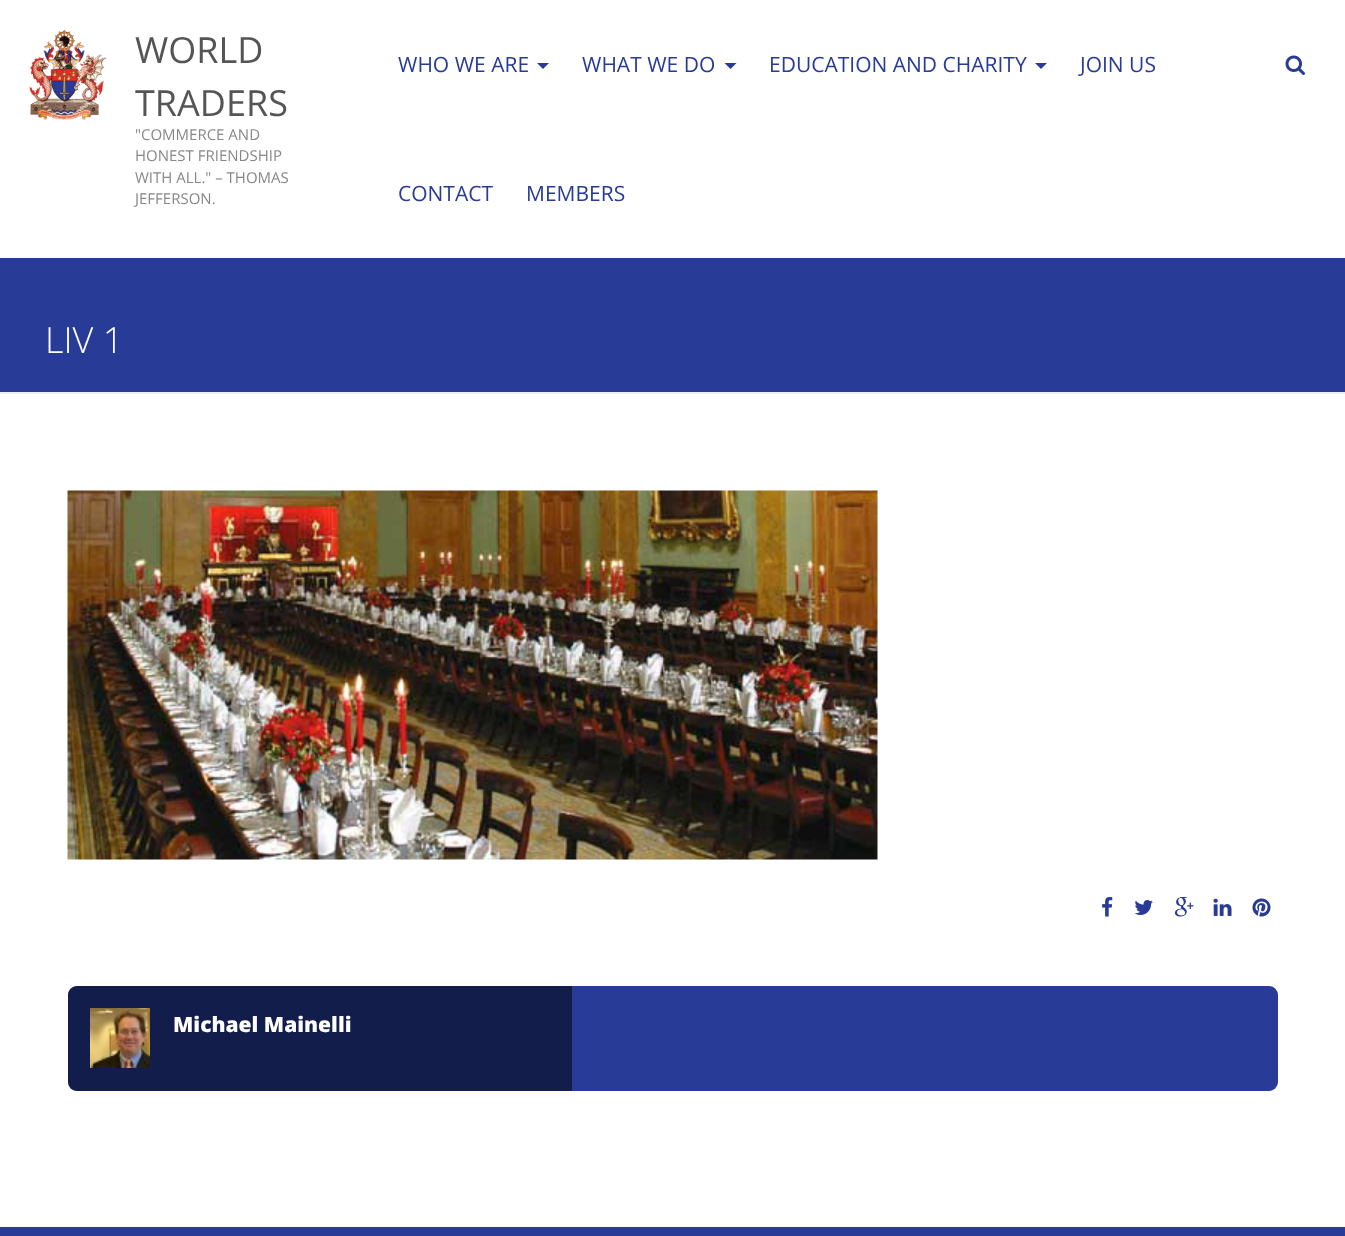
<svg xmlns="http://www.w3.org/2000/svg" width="1345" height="1236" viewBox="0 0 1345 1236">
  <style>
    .t1 { font: 36px Open Sans; fill: #555; }
    .t2 { font: 15px Open Sans; fill: #888; }
    .t3 { font: 21px Open Sans; fill: #273b97; }
    .t4 { font: 300 36px Open Sans; fill: #fff; }
    .t5 { font: 800 21px Open Sans; fill: #fff; }
  </style>
  <rect width="100%" height="100%" fill="#fff"/>
  <image x="29" y="30" width="78" height="90" href="images/1.png"/>
  <text x="135" y="63" class="t1">WORLD</text>
  <text x="135" y="116" class="t1">TRADERS</text>
  <text x="135" y="140" class="t2">"COMMERCE AND</text>
  <text x="135" y="161" class="t2">HONEST FRIENDSHIP</text>
  <text x="135" y="183" class="t2">WITH ALL." – THOMAS</text>
  <text x="135" y="204" class="t2">JEFFERSON.</text>
  <text x="398" y="72" class="t3">WHO WE ARE</text>
  <path d="M537 63H549L543 69Z" fill="#273b97"/>
  <text x="582" y="72" class="t3">WHAT WE DO</text>
  <path d="M724.5 63H736.5L730.5 69Z" fill="#273b97"/>
  <text x="769" y="72" class="t3">EDUCATION AND CHARITY</text>
  <path d="M1035 63H1047L1041 69Z" fill="#273b97"/>
  <text x="1080" y="72" class="t3">JOIN US</text>
  <text x="398" y="201" class="t3">CONTACT</text>
  <text x="526" y="201" class="t3">MEMBERS</text>
  <image x="1285" y="55" width="20" height="20" href="images/2.png"/>
  <rect x="0" y="258" width="1345" height="134" fill="#273b97"/>
  <rect x="0" y="392" width="1345" height="2" fill="#eee"/>
  <text x="45" y="353" class="t4">LIV 1</text>
  <image x="67" y="490" width="811" height="370" href="images/3.png"/>
  <image x="1102" y="897" width="11" height="20" href="images/4.png"/>
  <image x="1134" y="900" width="19" height="15" href="images/5.png"/>
  <image x="1174" y="897" width="20" height="20" href="images/6.png"/>
  <image x="1213" y="898" width="19" height="18" href="images/7.png"/>
  <image x="1252" y="898" width="19" height="19" href="images/8.png"/>
  <rect x="68" y="986" width="1210" height="105" rx="9" fill="#273b97"/>
  <path d="M77 986H572V1091H77C72 1091 68 1087 68 1082V995C68 990 72 986 77 986Z" fill="#00000080"/>
  <image x="90" y="1008" width="60" height="60" href="images/9.png"/>
  <text x="173" y="1032" class="t5">Michael Mainelli</text>
  <rect x="0" y="1227" width="1345" height="9" fill="#273b97"/>
</svg>
